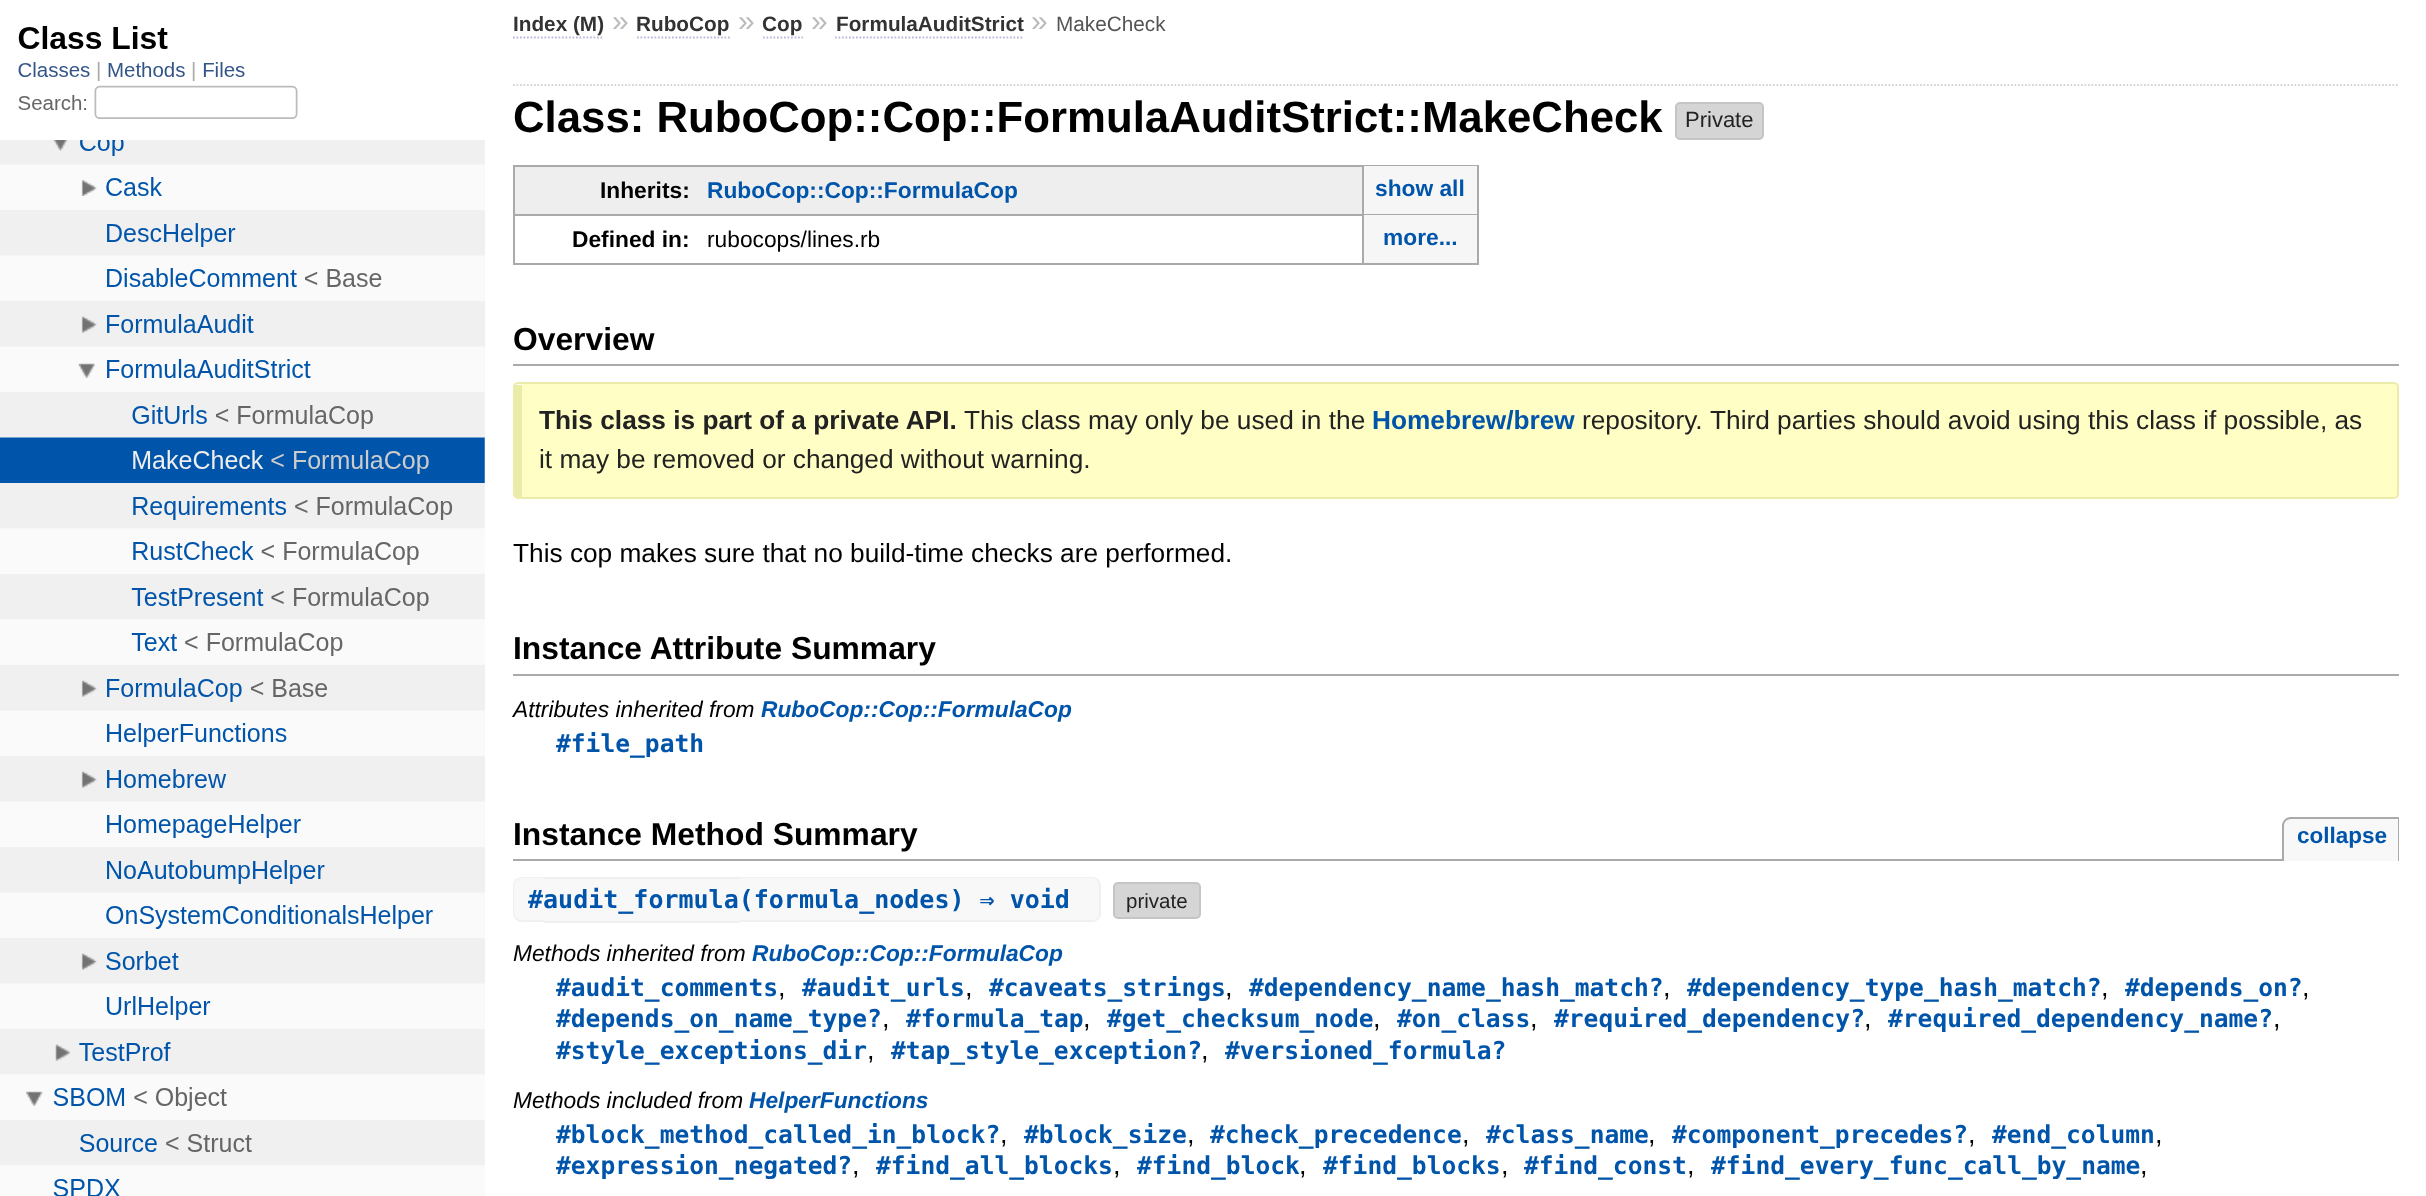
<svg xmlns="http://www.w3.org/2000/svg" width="2426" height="1196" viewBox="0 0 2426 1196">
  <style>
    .t1 { font: bold 20.75px Liberation Sans; fill: #333; }
    .t2 { font: 30px Liberation Sans; fill: #bbb; }
    .t3 { font: 20.75px Liberation Sans; fill: #555; }
    .t4 { font: bold 43.75px Liberation Sans; fill: #000; }
    .t5 { font: 22px Liberation Sans; fill: #222; }
    .t6 { font: bold 22.75px Liberation Sans; fill: #000; }
    .t7 { font: bold 22.75px Liberation Sans; fill: #05a; }
    .t8 { font: 22.75px Liberation Sans; fill: #000; }
    .t9 { font: bold 31.8px Liberation Sans; fill: #000; }
    .t10 { font: bold 26.25px Liberation Sans; fill: #222; }
    .t11 { font: 26.25px Liberation Sans; fill: #222; }
    .t12 { font: bold 26.25px Liberation Sans; fill: #05a; }
    .t13 { font: 26.25px Liberation Sans; fill: #000; }
    .t14 { font: italic 22.75px Liberation Sans; fill: #000; }
    .t15 { font: italic bold 22.75px Liberation Sans; fill: #05a; }
    .t16 { font: bold 24.6px DejaVu Sans Mono; fill: #05a; }
    .t17 { font: bold 22.5px Liberation Sans; fill: #05a; }
    .t18 { font: bold 25px DejaVu Sans Mono; fill: #05a; }
    .t19 { font: 20.5px Liberation Sans; fill: #222; }
    .t20 { font: 27px Liberation Sans; fill: #000; }
  </style>
  <rect width="100%" height="100%" fill="#fff"/>
  <image x="0" y="0" width="485" height="1196" href="images/1.png"/>
  <text x="513" y="31" class="t1">Index (M)</text>
  <path d="M513 37.5H604" fill="none" stroke="#bbd" stroke-width="1.8" stroke-dasharray="1.75 1.75"/>
  <text x="612" y="31" class="t2">»</text>
  <text x="636" y="31" class="t1">RuboCop</text>
  <path d="M637 37.5H730" fill="none" stroke="#bbd" stroke-width="1.8" stroke-dasharray="1.75 1.75"/>
  <text x="738" y="31" class="t2">»</text>
  <text x="762" y="31" class="t1">Cop</text>
  <path d="M763 37.5H803" fill="none" stroke="#bbd" stroke-width="1.8" stroke-dasharray="1.75 1.75"/>
  <text x="811" y="31" class="t2">»</text>
  <text x="836" y="31" class="t1">FormulaAuditStrict</text>
  <path d="M835 37.5H1024" fill="none" stroke="#bbd" stroke-width="1.8" stroke-dasharray="1.75 1.75"/>
  <text x="1031" y="31" class="t2">»</text>
  <text x="1056" y="31" class="t3">MakeCheck</text>
  <path d="M513 85H2399" fill="none" stroke="#d5d5d5" stroke-width="1.8" stroke-dasharray="1.75 1.75"/>
  <text x="513" y="132" class="t4">Class: RuboCop::Cop::FormulaAuditStrict::MakeCheck</text>
  <rect x="1676" y="103" width="87" height="36" rx="4" fill="#d5d5d5" stroke="#c5c5c5" stroke-width="2"/>
  <text x="1685" y="127" class="t5">Private</text>
  <rect x="515" y="167" width="847" height="47" fill="#eee"/>
  <rect x="513" y="165" width="966" height="2" fill="#aaa"/>
  <rect x="513" y="165" width="2" height="49" fill="#aaa"/>
  <text x="600" y="198" class="t6">Inherits:</text>
  <rect x="513" y="214" width="966" height="2" fill="#aaa"/>
  <rect x="1477" y="165" width="2" height="99" fill="#aaa"/>
  <text x="707" y="198" class="t7">RuboCop::Cop::FormulaCop</text>
  <rect x="1364" y="166" width="113" height="48" fill="#f6f6f6"/>
  <rect x="1362" y="166" width="2" height="48" fill="#aaa"/>
  <text x="1375" y="196" class="t7">show all</text>
  <rect x="513" y="263" width="194" height="2" fill="#aaa"/>
  <rect x="513" y="214" width="2" height="50" fill="#aaa"/>
  <text x="572" y="247" class="t6">Defined in:</text>
  <rect x="707" y="263" width="772" height="2" fill="#aaa"/>
  <text x="707" y="247" class="t8">rubocops/lines.rb</text>
  <rect x="1364" y="215" width="113" height="48" fill="#f6f6f6"/>
  <rect x="1362" y="215" width="2" height="48" fill="#aaa"/>
  <text x="1383" y="245" class="t7">more...</text>
  <rect x="513" y="364" width="1886" height="2" fill="#aaa"/>
  <text x="513" y="350" class="t9">Overview</text>
  <path d="M522 383H2394C2396 383 2398 385 2398 387V494C2398 495 2396 497 2394 497H522Z" fill="#ffffc5"/>
  <rect x="514" y="383" width="1884" height="115" rx="4" fill="none" stroke="#ececaa" stroke-width="2"/>
  <rect x="515" y="385" width="7" height="112" fill="#ececaa"/>
  <text x="539" y="429" class="t10">This class is part of a private API.</text>
  <text x="964" y="429" class="t11">This class may only be used in the</text>
  <text x="1372" y="429" class="t12">Homebrew/brew</text>
  <text x="1582" y="429" class="t11">repository.</text>
  <text x="1710" y="429" class="t11">Third parties should avoid using this class if possible, as</text>
  <text x="539" y="468" class="t11">it may be removed or changed without warning.</text>
  <text x="513" y="562" class="t13">This cop makes sure that no build-time checks are performed.</text>
  <rect x="513" y="674" width="1886" height="2" fill="#aaa"/>
  <text x="513" y="659" class="t9">Instance Attribute Summary</text>
  <text x="513" y="717" class="t14">Attributes inherited from</text>
  <text x="761" y="717" class="t15">RuboCop::Cop::FormulaCop</text>
  <text x="556" y="752" class="t16">#file_path</text>
  <rect x="513" y="859" width="1769" height="2" fill="#aaa"/>
  <text x="513" y="845" class="t9">Instance Method Summary</text>
  <path d="M2291 817H2399V861H2282V826C2282 821 2286 817 2291 817Z" fill="#f8f8f8"/>
  <path d="M2291 817H2399V861H2282V826C2282 821 2286 817 2291 817ZM2291 819H2398V861H2284V826C2284 822 2287 819 2291 819Z" fill="#aaa" fill-rule="evenodd"/>
  <text x="2297" y="843" class="t17">collapse</text>
  <path d="M522 877H544V922H522C517 922 513 918 513 913V886C513 881 517 877 522 877Z" fill="#f8f8f8"/>
  <path d="M522 877H544V922H522C517 922 513 918 513 914V886C513 881 517 877 522 877ZM522 878H544V920H522C518 920 514 917 514 914V886C514 882 518 878 522 878Z" fill="#f0f0f0" fill-rule="evenodd"/>
  <rect x="544" y="879" width="196" height="42" fill="#f8f8f8"/>
  <path d="M740 877H1092C1097 877 1101 881 1101 886V913C1101 918 1097 922 1092 922H740Z" fill="#f8f8f8"/>
  <path d="M740 877H1092C1097 877 1101 881 1101 886V914C1101 918 1097 922 1092 922H740ZM740 878H1092C1096 878 1099 882 1099 886V914C1099 917 1096 920 1092 920H740Z" fill="#f0f0f0" fill-rule="evenodd"/>
  <text x="528" y="908" class="t18">#audit_formula(formula_nodes) ⇒ void</text>
  <rect x="544" y="877" width="196" height="2" fill="#f0f0f0"/>
  <rect x="544" y="921" width="196" height="2" fill="#f0f0f0"/>
  <rect x="1114" y="883" width="86" height="35" rx="4" fill="#d5d5d5" stroke="#c5c5c5" stroke-width="2"/>
  <text x="1126" y="908" class="t19">private</text>
  <text x="513" y="961" class="t14">Methods inherited from</text>
  <text x="752" y="961" class="t15">RuboCop::Cop::FormulaCop</text>
  <text x="556" y="996" class="t16">#audit_comments</text>
  <text x="778" y="996" class="t20">,</text>
  <text x="802" y="996" class="t16">#audit_urls</text>
  <text x="965" y="996" class="t20">,</text>
  <text x="989" y="996" class="t16">#caveats_strings</text>
  <text x="1225" y="996" class="t20">,</text>
  <text x="1249" y="996" class="t16">#dependency_name_hash_match?</text>
  <text x="1663" y="996" class="t20">,</text>
  <text x="1687" y="996" class="t16">#dependency_type_hash_match?</text>
  <text x="2101" y="996" class="t20">,</text>
  <text x="2125" y="996" class="t16">#depends_on?</text>
  <text x="2302" y="996" class="t20">,</text>
  <text x="556" y="1027" class="t16">#depends_on_name_type?</text>
  <text x="882" y="1027" class="t20">,</text>
  <text x="906" y="1027" class="t16">#formula_tap</text>
  <text x="1083" y="1027" class="t20">,</text>
  <text x="1107" y="1027" class="t16">#get_checksum_node</text>
  <text x="1373" y="1027" class="t20">,</text>
  <text x="1397" y="1027" class="t16">#on_class</text>
  <text x="1530" y="1027" class="t20">,</text>
  <text x="1554" y="1027" class="t16">#required_dependency?</text>
  <text x="1864" y="1027" class="t20">,</text>
  <text x="1888" y="1027" class="t16">#required_dependency_name?</text>
  <text x="2273" y="1027" class="t20">,</text>
  <text x="556" y="1059" class="t16">#style_exceptions_dir</text>
  <text x="867" y="1059" class="t20">,</text>
  <text x="891" y="1059" class="t16">#tap_style_exception?</text>
  <text x="1201" y="1059" class="t20">,</text>
  <text x="1225" y="1059" class="t16">#versioned_formula?</text>
  <text x="513" y="1108" class="t14">Methods included from</text>
  <text x="749" y="1108" class="t15">HelperFunctions</text>
  <text x="556" y="1143" class="t16">#block_method_called_in_block?</text>
  <text x="1000" y="1143" class="t20">,</text>
  <text x="1024" y="1143" class="t16">#block_size</text>
  <text x="1187" y="1143" class="t20">,</text>
  <text x="1210" y="1143" class="t16">#check_precedence</text>
  <text x="1462" y="1143" class="t20">,</text>
  <text x="1486" y="1143" class="t16">#class_name</text>
  <text x="1648" y="1143" class="t20">,</text>
  <text x="1672" y="1143" class="t16">#component_precedes?</text>
  <text x="1968" y="1143" class="t20">,</text>
  <text x="1992" y="1143" class="t16">#end_column</text>
  <text x="2155" y="1143" class="t20">,</text>
  <text x="556" y="1174" class="t16">#expression_negated?</text>
  <text x="852" y="1174" class="t20">,</text>
  <text x="876" y="1174" class="t16">#find_all_blocks</text>
  <text x="1113" y="1174" class="t20">,</text>
  <text x="1137" y="1174" class="t16">#find_block</text>
  <text x="1299" y="1174" class="t20">,</text>
  <text x="1323" y="1174" class="t16">#find_blocks</text>
  <text x="1501" y="1174" class="t20">,</text>
  <text x="1524" y="1174" class="t16">#find_const</text>
  <text x="1687" y="1174" class="t20">,</text>
  <text x="1711" y="1174" class="t16">#find_every_func_call_by_name</text>
  <text x="2140" y="1174" class="t20">,</text>
</svg>
